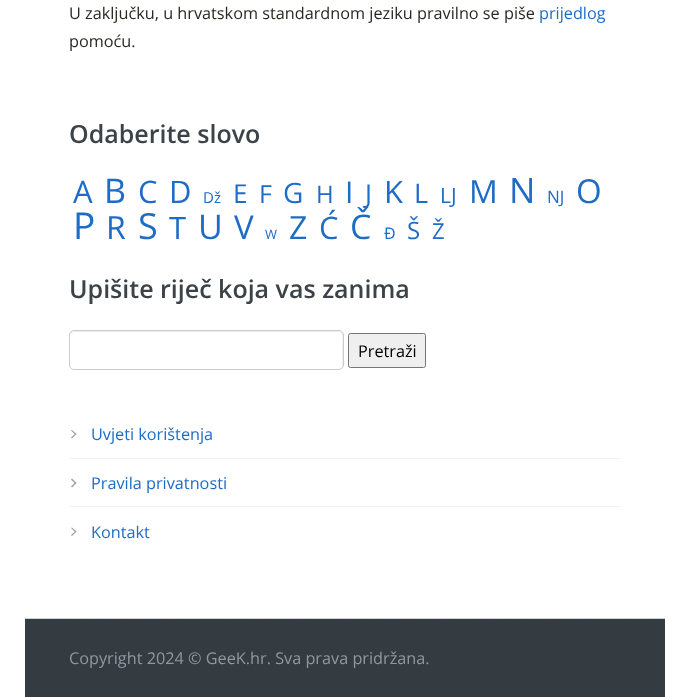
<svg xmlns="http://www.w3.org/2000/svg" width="690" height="697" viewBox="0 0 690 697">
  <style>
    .t1 { font: 16.25px Open Sans; fill: #282924; }
    .t2 { font: 16.25px Open Sans; fill: #1d6cc6; }
    .t3 { font: 600 25px Open Sans; fill: #3b4348; }
    .t4 { font: 31px Open Sans; fill: #1d6cc6; }
    .t5 { font: 34px Open Sans; fill: #1d6cc6; }
    .t6 { font: 15px Open Sans; fill: #1d6cc6; }
    .t7 { font: 26px Open Sans; fill: #1d6cc6; }
    .t8 { font: 25px Open Sans; fill: #1d6cc6; }
    .t9 { font: 28px Open Sans; fill: #1d6cc6; }
    .t10 { font: 24px Open Sans; fill: #1d6cc6; }
    .t11 { font: 30px Open Sans; fill: #1d6cc6; }
    .t12 { font: 27px Open Sans; fill: #1d6cc6; }
    .t13 { font: 21px Open Sans; fill: #1d6cc6; }
    .t14 { font: 32px Open Sans; fill: #1d6cc6; }
    .t15 { font: 35px Open Sans; fill: #1d6cc6; }
    .t16 { font: 17px Open Sans; fill: #1d6cc6; }
    .t17 { font: 33px Open Sans; fill: #1d6cc6; }
    .t18 { font: 37px Open Sans; fill: #1d6cc6; }
    .t19 { font: 36px Open Sans; fill: #1d6cc6; }
    .t20 { font: 13px Open Sans; fill: #1d6cc6; }
    .t21 { font: 16px Open Sans; fill: #1d6cc6; }
    .t22 { font: 22px Open Sans; fill: #1d6cc6; }
    .t23 { font: 16.25px Open Sans; fill: #000; }
    .t24 { font: 16.25px Open Sans; fill: #8f98a0; }
  </style>
  <rect width="100%" height="100%" fill="#fff"/>
  <text x="69" y="19" class="t1">U zaključku, u hrvatskom standardnom jeziku pravilno se piše</text>
  <text x="539" y="19" class="t2">prijedlog</text>
  <text x="69" y="47" class="t1">pomoću.</text>
  <text x="69" y="143" class="t3">Odaberite slovo</text>
  <text x="73" y="203" class="t4">A</text>
  <text x="104" y="203" class="t5">B</text>
  <text x="138" y="203" class="t4">C</text>
  <text x="169" y="203" class="t4">D</text>
  <text x="203" y="203" class="t6">Dž</text>
  <text x="233" y="203" class="t7">E</text>
  <text x="259" y="203" class="t8">F</text>
  <text x="283" y="203" class="t9">G</text>
  <text x="316" y="203" class="t10">H</text>
  <text x="345" y="203" class="t11">I</text>
  <text x="365" y="203" class="t7">J</text>
  <text x="384" y="203" class="t4">K</text>
  <text x="414" y="203" class="t12">L</text>
  <text x="440" y="203" class="t13">LJ</text>
  <text x="469" y="203" class="t14">M</text>
  <text x="509" y="203" class="t15">N</text>
  <text x="547" y="203" class="t16">NJ</text>
  <text x="576" y="203" class="t17">O</text>
  <text x="73" y="239" class="t18">P</text>
  <text x="106" y="239" class="t14">R</text>
  <text x="138" y="239" class="t19">S</text>
  <text x="169" y="239" class="t4">T</text>
  <text x="198" y="239" class="t5">U</text>
  <text x="234" y="239" class="t17">V</text>
  <text x="265" y="239" class="t20">W</text>
  <text x="289" y="239" class="t14">Z</text>
  <text x="319" y="239" class="t4">Ć</text>
  <text x="350" y="239" class="t5">Č</text>
  <text x="384" y="239" class="t21">Đ</text>
  <text x="407" y="239" class="t10">Š</text>
  <text x="432" y="239" class="t22">Ž</text>
  <text x="69" y="298" class="t3">Upišite riječ koja vas zanima</text>
  <path d="M74 332H339C344 332 342 344 342 346V368C342 367 343 366 343 365V335C343 333 341 331 339 331H74C72 331 70 333 70 335V336C70 334 72 332 74 332Z" fill="#ececec"/>
  <rect x="69.5" y="330.5" width="274" height="39" rx="4.5" fill="none" stroke="#ccc"/>
  <rect x="348.5" y="333.5" width="77" height="34" rx="2" fill="#efefef" stroke="#767676"/>
  <text x="358" y="357" class="t23">Pretraži</text>
  <rect x="69" y="458" width="552" height="1" fill="#f2f2f2"/>
  <path d="M71 430.5L72 430L76.5 434L75.5 435Z" fill="#9da1a4"/>
  <path d="M71 437.5L75.5 433.5L76.5 434L72 438.5Z" fill="#9da1a4"/>
  <text x="91" y="440" class="t2">Uvjeti korištenja</text>
  <rect x="69" y="506" width="552" height="1" fill="#f2f2f2"/>
  <path d="M71 479.5L72 478.5L76.5 483L75.5 484Z" fill="#9da1a4"/>
  <path d="M71 486.5L75.5 482L76.5 483L72 487.5Z" fill="#9da1a4"/>
  <text x="91" y="489" class="t2">Pravila privatnosti</text>
  <path d="M71 528L72 527.5L76.5 531.5L75.5 532.5Z" fill="#9da1a4"/>
  <path d="M71 535L75.5 531L76.5 531.5L72 536Z" fill="#9da1a4"/>
  <text x="91" y="538" class="t2">Kontakt</text>
  <image x="25" y="618" width="640" height="1" href="images/1.png"/>
  <rect x="25" y="619" width="640" height="78" fill="#353c41"/>
  <text x="69" y="664" class="t24">Copyright 2024 © GeeK.hr. Sva prava pridržana.</text>
</svg>
